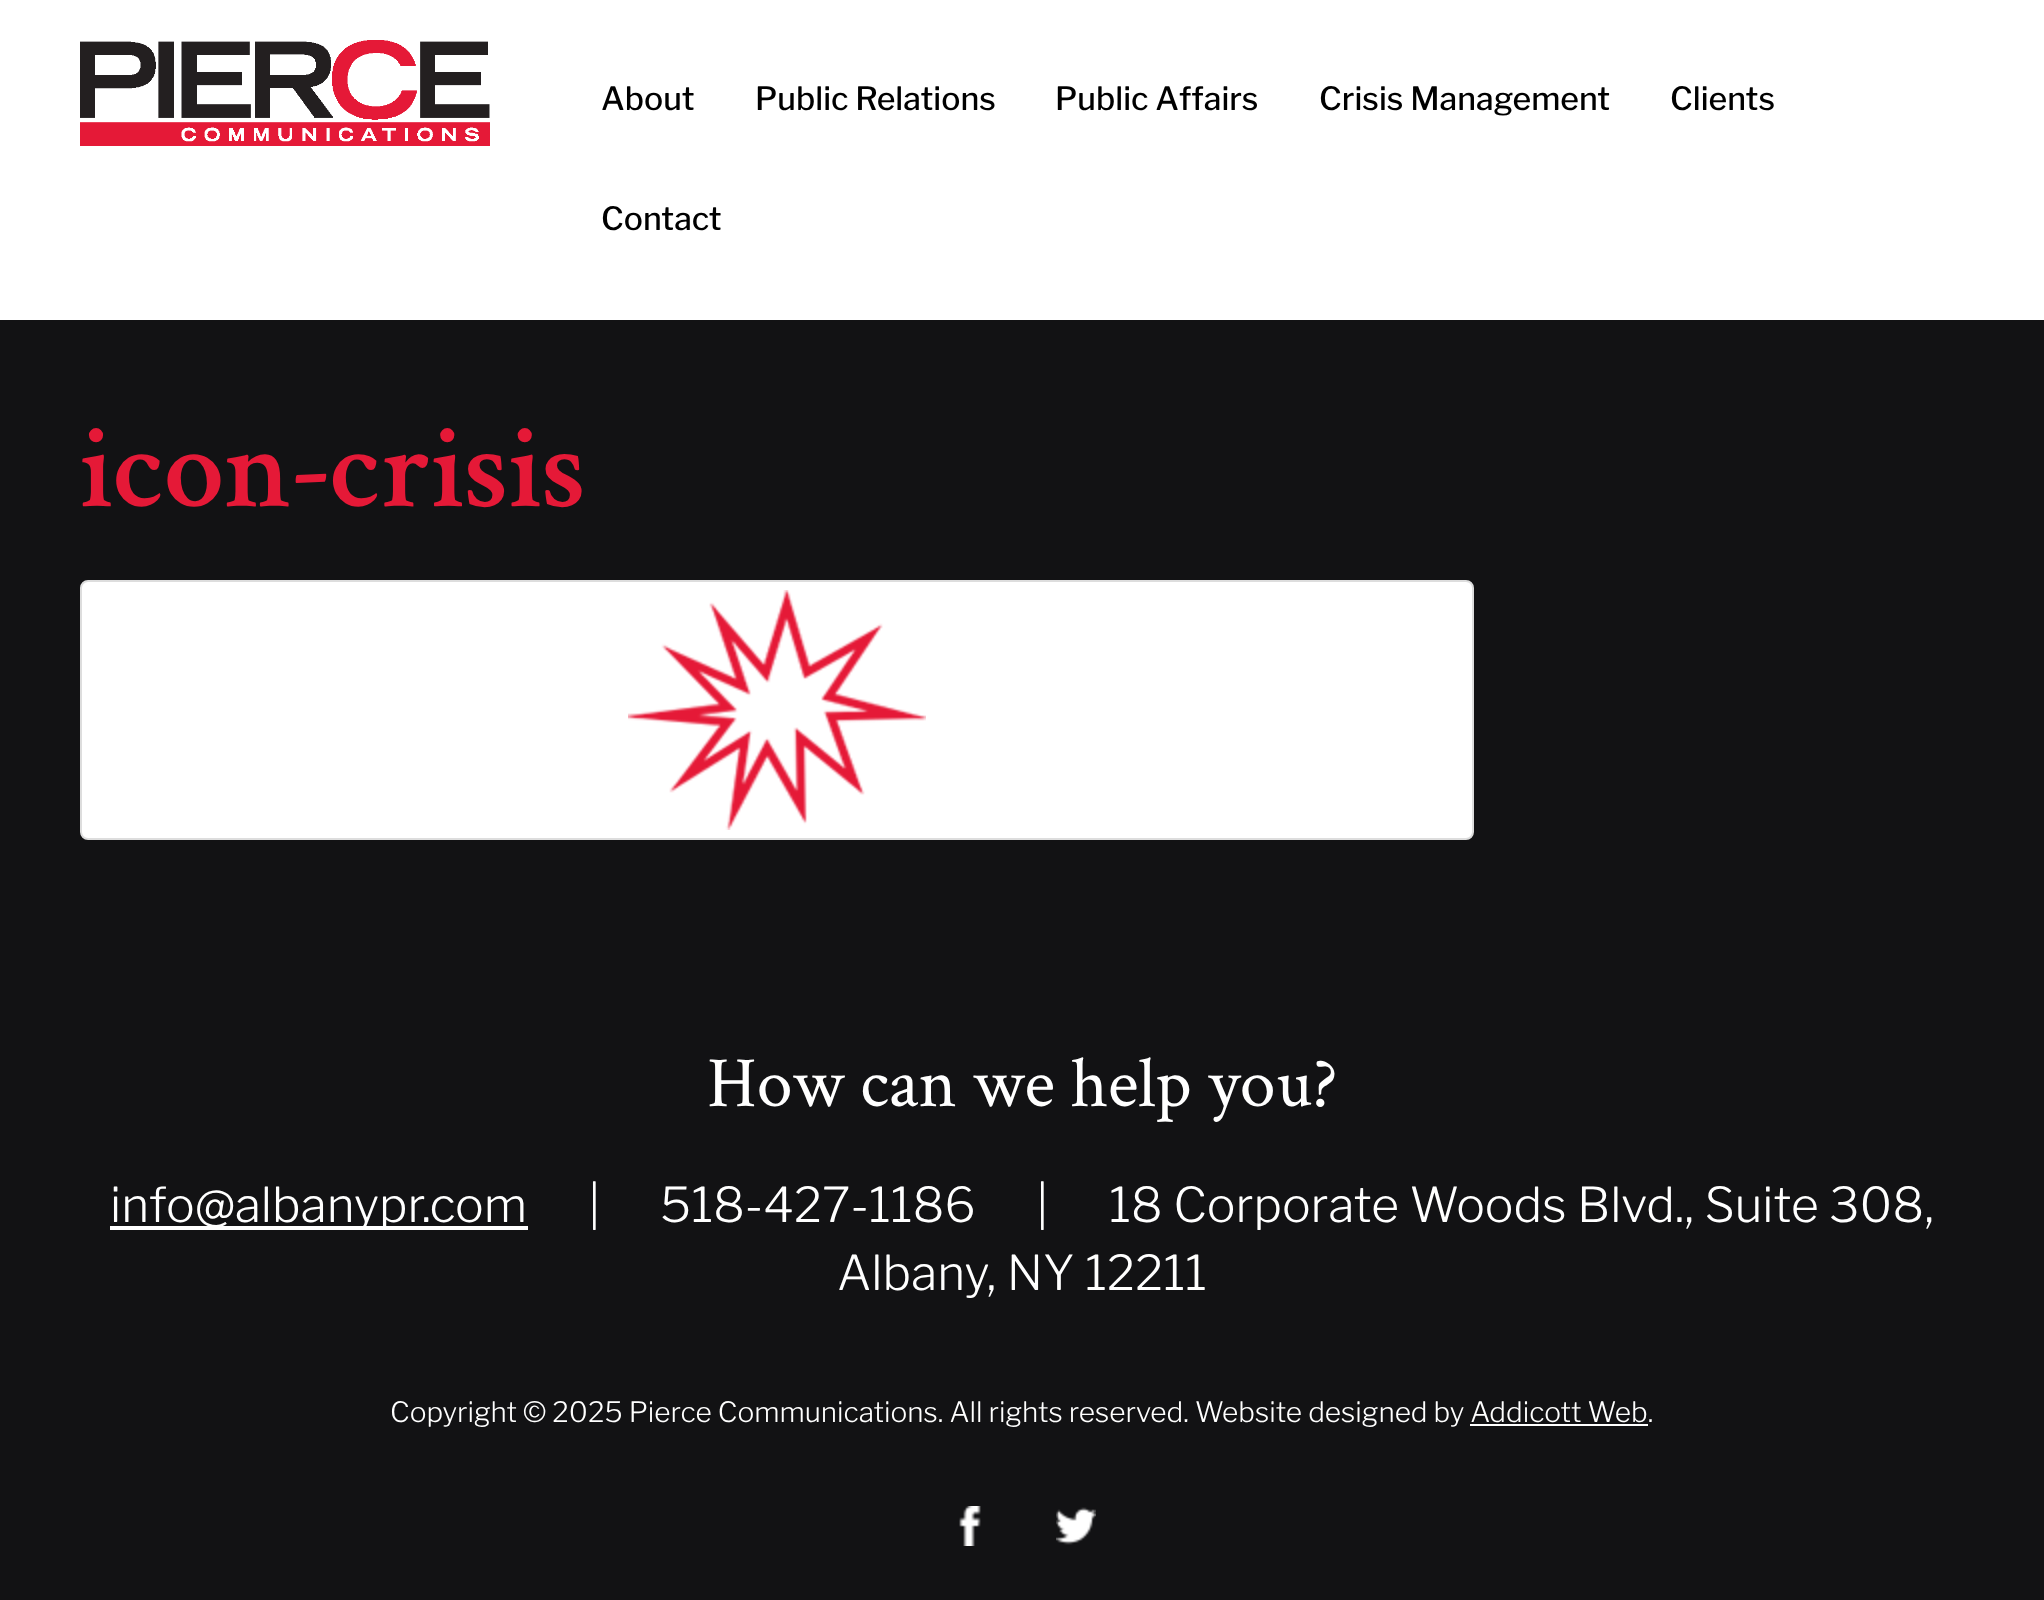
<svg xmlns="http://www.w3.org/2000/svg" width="2044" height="1600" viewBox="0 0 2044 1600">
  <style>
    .t1 { font: 500 32px Libre Franklin; fill: #000; }
    .t2 { font: 600 120px Crimson Text; fill: #e51937; }
    .t3 { font: 72px Crimson Text; fill: #fff; }
    .t4 { font: 300 48px Libre Franklin; fill: #fff; }
    .t5 { font: 300 28px Libre Franklin; fill: #fff; }
  </style>
  <rect width="100%" height="100%" fill="#121214"/>
  <rect x="0" y="0" width="2044" height="320" fill="#fff"/>
  <image x="80" y="40" width="410" height="106" href="images/1.png"/>
  <text x="601" y="110" class="t1">About</text>
  <text x="755" y="110" class="t1">Public Relations</text>
  <text x="1055" y="110" class="t1">Public Affairs</text>
  <text x="1319" y="110" class="t1">Crisis Management</text>
  <text x="1670" y="110" class="t1">Clients</text>
  <text x="601" y="230" class="t1">Contact</text>
  <text x="80" y="506" class="t2">icon-crisis</text>
  <rect x="81" y="581" width="1392" height="258" rx="7" fill="#fff" stroke="#ddd" stroke-width="2"/>
  <image x="628" y="590" width="298" height="240" href="images/2.png"/>
  <text x="707" y="1106" class="t3">How can we help you?</text>
  <rect x="110" y="1226" width="418" height="4" fill="#fff"/>
  <text x="110" y="1222" class="t4">info@albanypr.com</text>
  <text x="588" y="1222" class="t4">|</text>
  <text x="660" y="1222" class="t4">518-427-1186</text>
  <text x="1036" y="1222" class="t4">|</text>
  <text x="1109" y="1222" class="t4">18 Corporate Woods Blvd., Suite 308,</text>
  <text x="837" y="1290" class="t4">Albany, NY 12211</text>
  <text x="390" y="1422" class="t5">Copyright © 2025 Pierce Communications. All rights reserved. Website designed by Addicott Web.</text>
  <rect x="1470" y="1424" width="178" height="2" fill="#fff"/>
  <image x="959" y="1506" width="22" height="40" href="images/3.png"/>
  <image x="1056" y="1507" width="40" height="38" href="images/4.png"/>
</svg>
